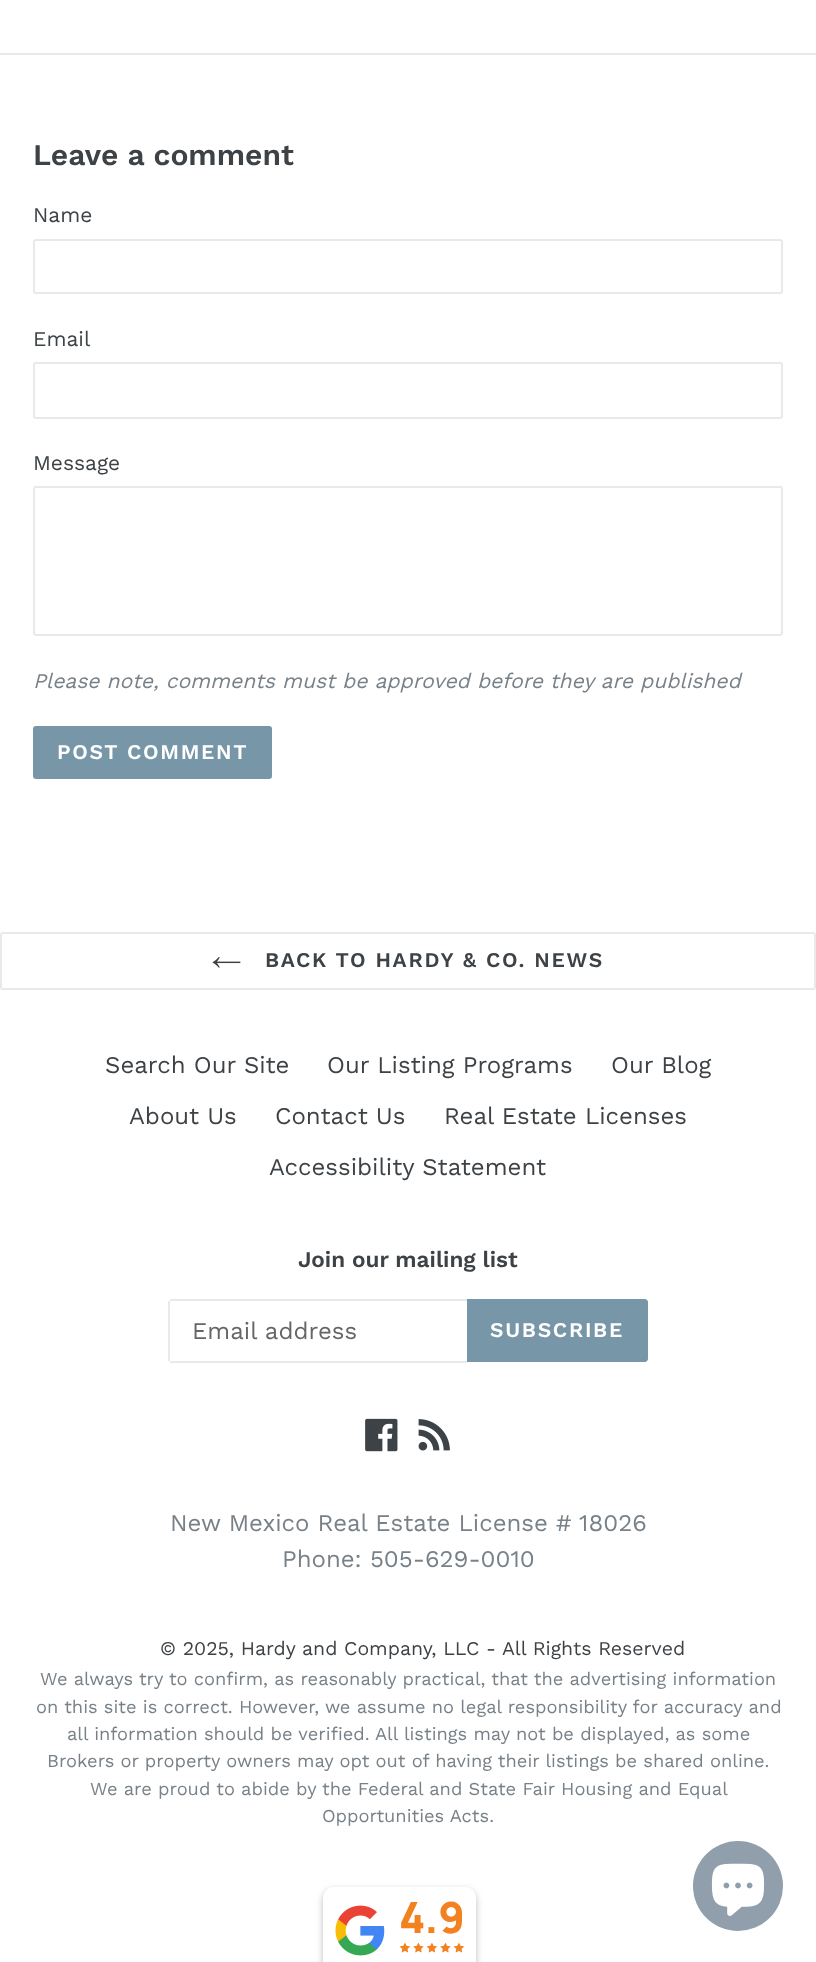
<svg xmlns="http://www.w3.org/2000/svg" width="816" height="1962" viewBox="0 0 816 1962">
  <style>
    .t1 { font: 600 30px Work Sans; fill: #3d4246; }
    .t2 { font: 21px Work Sans; fill: #3d4246; }
    .t3 { font: italic 21px Work Sans; fill: #788188; }
    .t4 { font: 600 21px Work Sans; letter-spacing: 1.7px; fill: #fff; }
    .t5 { font: 600 21px Work Sans; letter-spacing: 1.7px; fill: #3d4246; }
    .t6 { font: 24px Work Sans; fill: #3d4246; }
    .t7 { font: 600 22.5px Work Sans; fill: #3d4246; }
    .t8 { font: 24px Work Sans; fill: #666; }
    .t9 { font: 24px Work Sans; fill: #788188; }
    .t10 { font: 19.5px Work Sans; fill: #3d4246; }
    .t11 { font: 18.3px Work Sans; fill: #788188; }
    .t12 { font: 800 43px Manrope; fill: #f48120; }
  </style>
  <rect width="100%" height="100%" fill="#fff"/>
  <rect x="0" y="53" width="816" height="2" fill="#e8e9eb"/>
  <text x="33" y="165" class="t1">Leave a comment</text>
  <text x="33" y="222" class="t2">Name</text>
  <rect x="34" y="240" width="748" height="53" rx="2" fill="none" stroke="#e8e9eb" stroke-width="2"/>
  <text x="33" y="346" class="t2">Email</text>
  <rect x="34" y="363" width="748" height="55" rx="2" fill="none" stroke="#e8e9eb" stroke-width="2"/>
  <text x="33" y="470" class="t2">Message</text>
  <rect x="34" y="487" width="748" height="148" rx="2" fill="none" stroke="#e8e9eb" stroke-width="2"/>
  <text x="33" y="688" class="t3">Please note, comments must be approved before they are published</text>
  <rect x="33" y="726" width="239" height="53" rx="3" fill="#7796a8"/>
  <text x="57" y="759" class="t4">POST COMMENT</text>
  <rect x="1" y="933" width="814" height="56" rx="2" fill="none" stroke="#e8e9eb" stroke-width="2"/>
  <image x="212" y="957" width="29" height="11" href="images/1.png"/>
  <text x="265" y="967" class="t5">BACK TO HARDY &amp; CO. NEWS</text>
  <text x="105" y="1073" class="t6">Search Our Site</text>
  <text x="327" y="1073" class="t6">Our Listing Programs</text>
  <text x="611" y="1073" class="t6">Our Blog</text>
  <text x="129" y="1124" class="t6">About Us</text>
  <text x="275" y="1124" class="t6">Contact Us</text>
  <text x="444" y="1124" class="t6">Real Estate Licenses</text>
  <text x="269" y="1175" class="t6">Accessibility Statement</text>
  <text x="298" y="1267" class="t7">Join our mailing list</text>
  <rect x="170" y="1299" width="297" height="2" fill="#e8e9eb"/>
  <rect x="170" y="1361" width="297" height="2" fill="#e8e9eb"/>
  <rect x="168" y="1301" width="2" height="60" fill="#e8e9eb"/>
  <text x="192" y="1339" class="t8">Email address</text>
  <path d="M467 1299H645C646.5 1299 648 1300.5 648 1302V1359C648 1360.5 646.5 1362 645 1362H467Z" fill="#7796a8"/>
  <text x="490" y="1337" class="t4">SUBSCRIBE</text>
  <image x="365" y="1418" width="33" height="34" href="images/2.png"/>
  <image x="418" y="1419" width="32" height="32" href="images/3.png"/>
  <text x="170" y="1531" class="t9">New Mexico Real Estate License # 18026</text>
  <text x="282" y="1567" class="t9">Phone: 505-629-0010</text>
  <text x="160" y="1655" class="t10">© 2025, Hardy and Company, LLC - All Rights Reserved</text>
  <text x="40" y="1685" class="t11">We always try to confirm, as reasonably practical, that the advertising information</text>
  <text x="36" y="1713" class="t11">on this site is correct. However, we assume no legal responsibility for accuracy and</text>
  <text x="67" y="1740" class="t11">all information should be verified. All listings may not be displayed, as some</text>
  <text x="47" y="1767" class="t11">Brokers or property owners may opt out of having their listings be shared online.</text>
  <text x="90" y="1795" class="t11">We are proud to abide by the Federal and State Fair Housing and Equal</text>
  <text x="322" y="1822" class="t11">Opportunities Acts.</text>
  <rect x="323" y="1890" width="153" height="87" rx="11" fill="#00000042" filter="blur(3.5px)"/>
  <rect x="323" y="1887" width="153" height="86" rx="11" fill="#fff"/>
  <image x="335" y="1905" width="50" height="51" href="images/4.png"/>
  <text x="399" y="1933" class="t12">4.9</text>
  <image x="399" y="1943" width="11" height="10" href="images/5.png"/>
  <image x="413" y="1943" width="11" height="10" href="images/6.png"/>
  <image x="426" y="1943" width="11" height="10" href="images/5.png"/>
  <image x="440" y="1943" width="11" height="10" href="images/6.png"/>
  <image x="453" y="1943" width="11" height="10" href="images/5.png"/>
  <circle cx="738" cy="1886" r="45" fill="#909fab"/>
  <image x="711" y="1863" width="54" height="53" href="images/7.png"/>
</svg>
